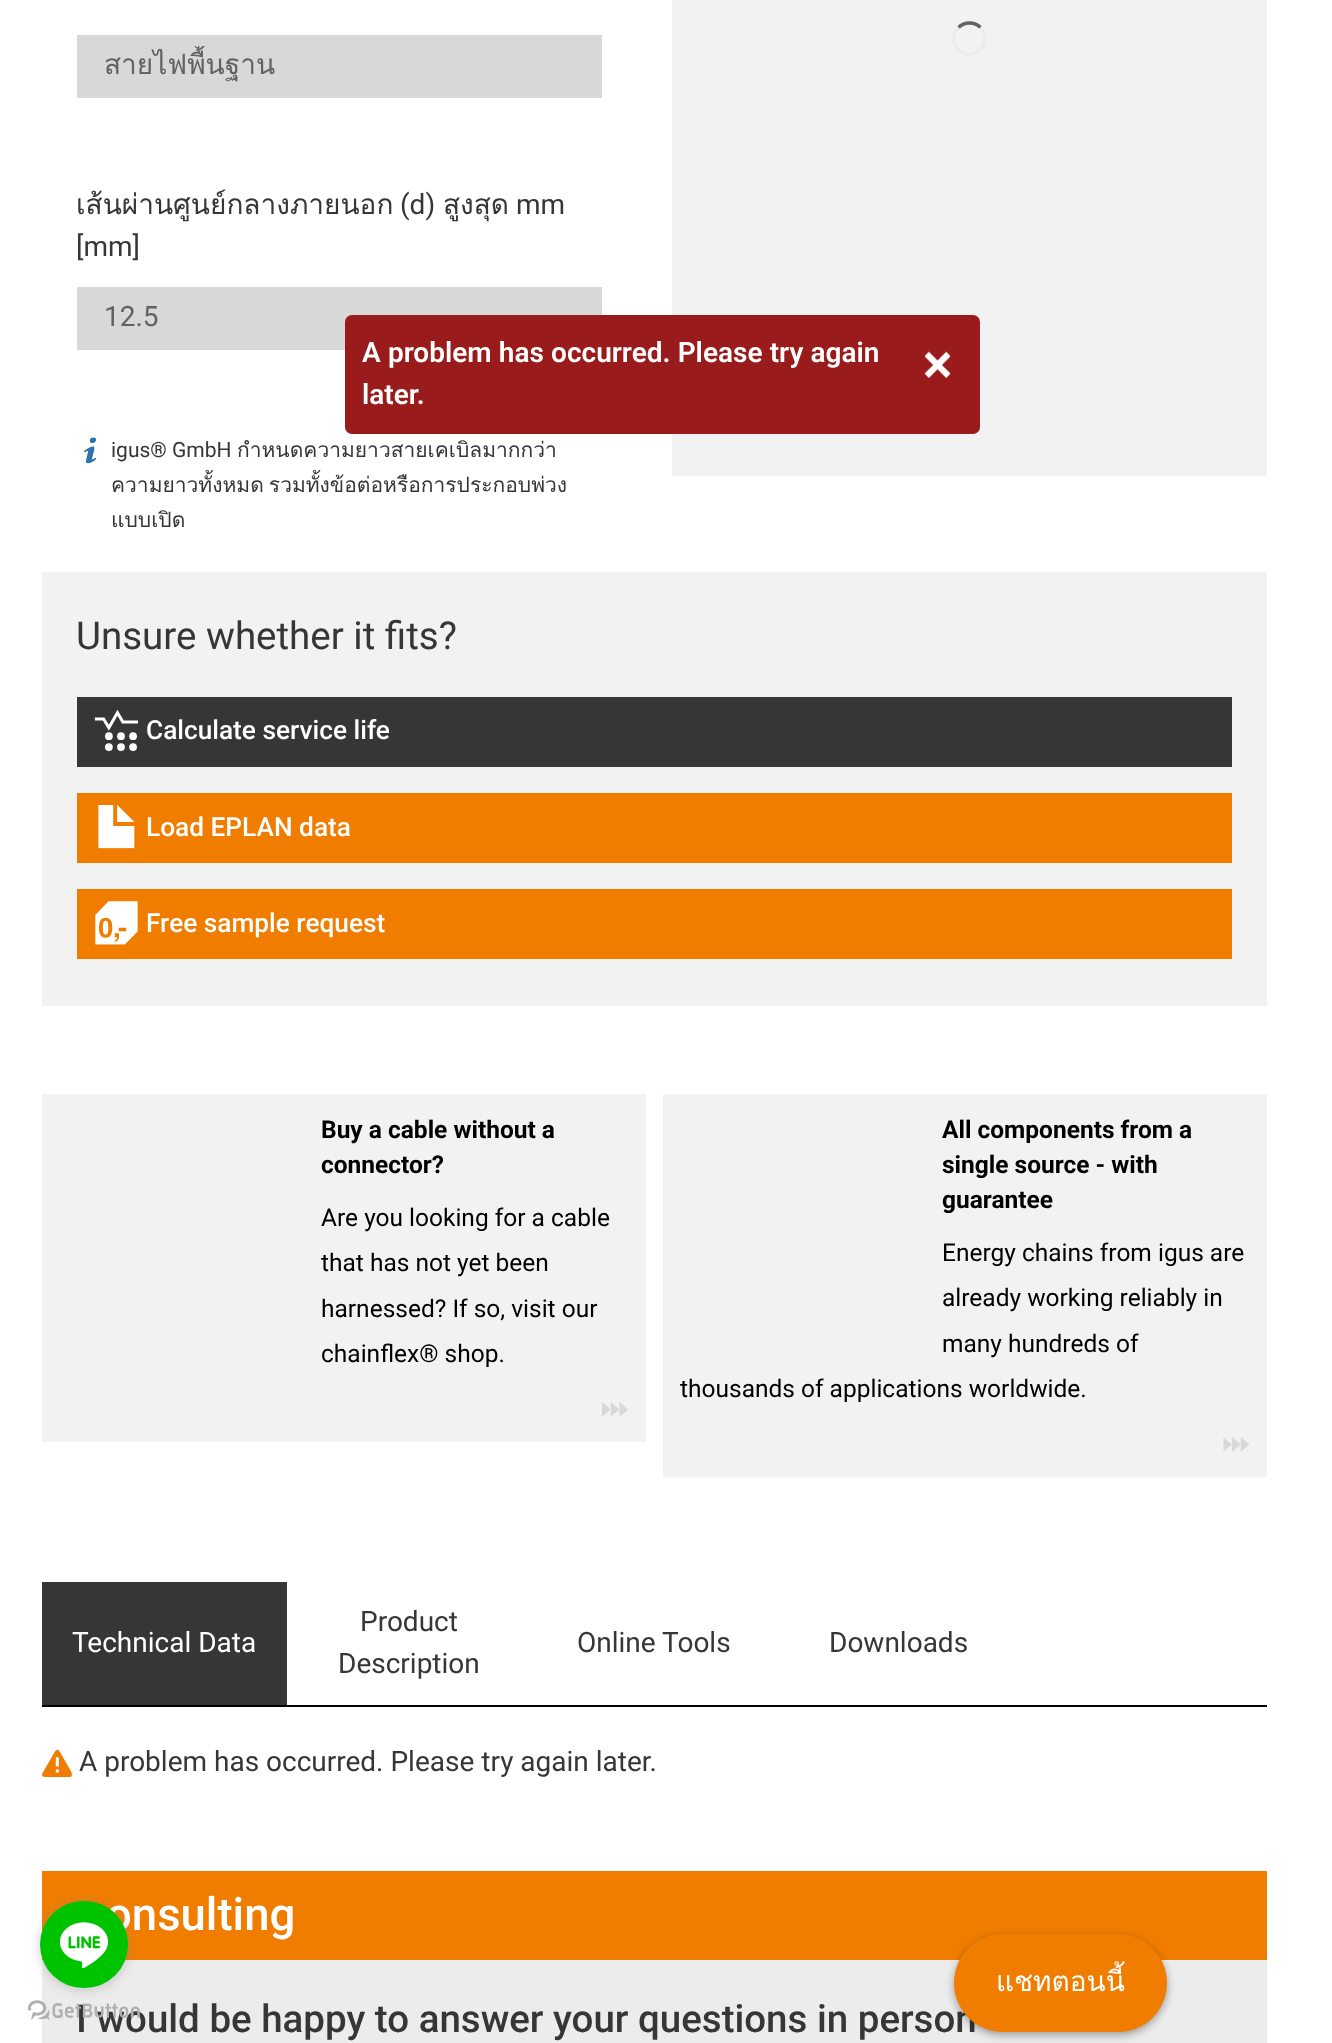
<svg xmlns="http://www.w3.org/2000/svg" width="1332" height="2043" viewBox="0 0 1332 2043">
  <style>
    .t1 { font: 28px Loma; fill: #626262; }
    .t2 { font: 28px Loma; fill: #363636; }
    .t3 { font: 28px Roboto; fill: #363636; }
    .t4 { font: 28px Roboto; fill: #626262; }
    .t5 { font: 21px Roboto; fill: #363636; }
    .t6 { font: 21px Loma; fill: #363636; }
    .t7 { font: 38.5px Roboto; fill: #363636; }
    .t8 { font: 500 26.25px Roboto; fill: #fff; }
    .t9 { font: bold 24.5px Roboto; fill: #000; }
    .t10 { font: 24.5px Roboto; fill: #000; }
    .t11 { font: 28px Roboto; fill: #fff; }
    .t12 { font: 600 28px Roboto; fill: #fff; }
    .t13 { font: 500 45.5px Roboto; fill: #fff; }
    .t14 { font: 500 38.5px Roboto; fill: #363636; }
    .t15 { font: 28px Loma; fill: #fff; }
  </style>
  <defs>
    <clipPath id="clip1"><rect x="105" y="46" width="469" height="42"/></clipPath>
  </defs>
  <rect width="100%" height="100%" fill="#fff"/>
  <rect x="77" y="35" width="525" height="63" fill="#d8d8d8"/>
  <g clip-path="url(#clip1)">
    <text x="104" y="74" class="t1">สายไฟพื้นฐาน</text>
  </g>
  <text x="76" y="214" class="t2">เส้นผ่านศูนย์กลางภายนอก</text>
  <text x="400" y="214" class="t3">(d)</text>
  <text x="443" y="214" class="t2">สูงสุด</text>
  <text x="516" y="214" class="t3">mm</text>
  <text x="76" y="256" class="t3">[mm]</text>
  <rect x="77" y="287" width="525" height="63" fill="#d8d8d8"/>
  <text x="104" y="326" class="t4">12.5</text>
  <image x="84" y="437" width="13" height="27" href="images/1.png"/>
  <text x="111" y="457" class="t5">igus® GmbH</text>
  <text x="237" y="457" class="t6">กำหนดความยาวสายเคเบิลมากกว่า</text>
  <text x="111" y="492" word-spacing="-2" class="t6">ความยาวทั้งหมด รวมทั้งข้อต่อหรือการประกอบพ่วง</text>
  <text x="111" y="527" class="t6">แบบเปิด</text>
  <rect x="672" y="0" width="595" height="476" fill="#f2f2f2"/>
  <path d="M958.5 27.5C964.5 21.5 974.5 21.5 980.5 27.5" fill="none" stroke="#626262" stroke-width="3.5"/>
  <path d="M980.5 27.5C983.5 30.5 985 34.5 985 38.5C985 57.5 957.5 60 954 41.5C953 36.5 954.5 31 958.5 27.5" fill="none" stroke="#ececec" stroke-width="3.5"/>
  <rect x="42" y="572" width="1225" height="434" fill="#f2f2f2"/>
  <text x="76" y="649" class="t7">Unsure whether it fits?</text>
  <rect x="77" y="697" width="1155" height="70" fill="#363636"/>
  <image x="94" y="709" width="44" height="42" href="images/2.png"/>
  <text x="146" y="739" class="t8">Calculate service life</text>
  <rect x="77" y="793" width="1155" height="70" fill="#f07d00"/>
  <image x="98" y="805" width="37" height="44" href="images/3.png"/>
  <text x="146" y="836" class="t8">Load EPLAN data</text>
  <rect x="77" y="889" width="1155" height="70" fill="#f07d00"/>
  <image x="95" y="901" width="43" height="44" href="images/4.png"/>
  <text x="146" y="932" class="t8">Free sample request</text>
  <rect x="42" y="1094" width="604" height="348" fill="#f2f2f2"/>
  <text x="321" y="1138" class="t9">Buy a cable without a</text>
  <text x="321" y="1173" class="t9">connector?</text>
  <text x="321" y="1226" class="t10">Are you looking for a cable</text>
  <text x="321" y="1271" class="t10">that has not yet been</text>
  <text x="321" y="1317" class="t10">harnessed? If so, visit our</text>
  <text x="321" y="1362" class="t10">chainflex® shop.</text>
  <image x="602" y="1402" width="26" height="15" href="images/5.png"/>
  <rect x="663" y="1094" width="604" height="383" fill="#f2f2f2"/>
  <text x="942" y="1138" class="t9">All components from a</text>
  <text x="942" y="1173" class="t9">single source - with</text>
  <text x="942" y="1208" class="t9">guarantee</text>
  <text x="942" y="1261" class="t10">Energy chains from igus are</text>
  <text x="942" y="1306" class="t10">already working reliably in</text>
  <text x="942" y="1352" class="t10">many hundreds of</text>
  <text x="680" y="1397" class="t10">thousands of applications worldwide.</text>
  <image x="1223" y="1437" width="26" height="15" href="images/6.png"/>
  <rect x="42" y="1705" width="1225" height="2" fill="#000"/>
  <rect x="42" y="1582" width="245" height="123" fill="#363636"/>
  <text x="72" y="1652" class="t11">Technical Data</text>
  <text x="360" y="1631" class="t3">Product</text>
  <text x="338" y="1673" class="t3">Description</text>
  <text x="577" y="1652" class="t3">Online Tools</text>
  <text x="829" y="1652" class="t3">Downloads</text>
  <image x="42" y="1749" width="30" height="28" href="images/7.png"/>
  <text x="79" y="1771" class="t3">A problem has occurred. Please try again later.</text>
  <rect x="345" y="315" width="635" height="119" rx="7" fill="#991b1b"/>
  <text x="362" y="362" word-spacing="0.25" class="t12">A problem has occurred. Please try again</text>
  <text x="362" y="404" class="t12">later.</text>
  <image x="924" y="351" width="27" height="27" href="images/8.png"/>
  <rect x="42" y="1871" width="1225" height="89" fill="#f07d00"/>
  <text x="106" y="1930" class="t13">onsulting</text>
  <rect x="42" y="1960" width="1225" height="83" fill="#ececec"/>
  <text x="76" y="2032" class="t14">I would be happy to answer your questions in person</text>
  <image x="28" y="2000" width="112" height="20" href="images/10.png"/>
  <rect x="40" y="1902" width="88" height="88" rx="44" fill="#88888866" filter="blur(6px)"/>
  <rect x="40" y="1901" width="88" height="87" rx="43.5" fill="#00c300"/>
  <image x="59" y="1922" width="50" height="47" href="images/9.png"/>
  <rect x="954" y="1937" width="213" height="98" rx="49" fill="#00000059" filter="blur(4.5px)"/>
  <rect x="954" y="1934" width="213" height="98" rx="49" fill="#f07d00"/>
  <text x="996" y="1991" class="t15">แชทตอนนี้</text>
</svg>
